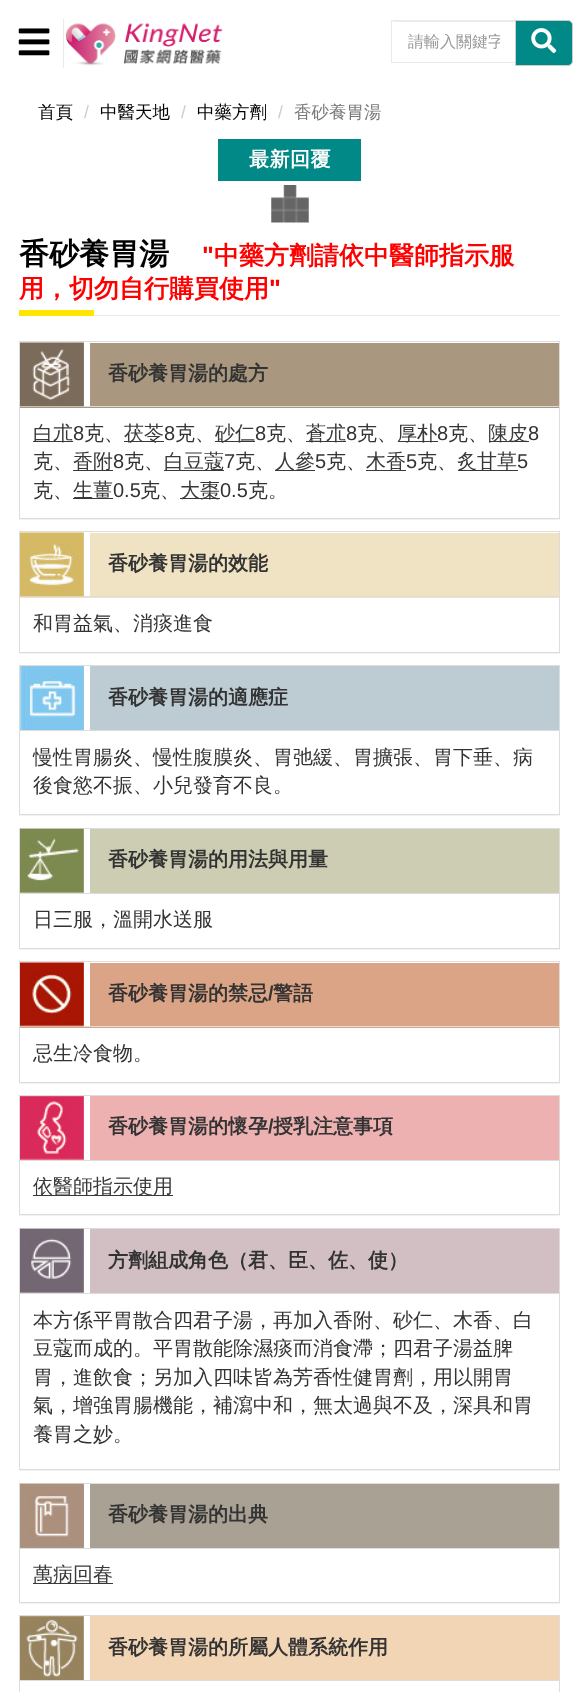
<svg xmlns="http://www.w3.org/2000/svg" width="578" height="1692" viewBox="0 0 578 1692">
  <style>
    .t1 { font: 500 16px WenQuanYi Zen Hei; fill: #999; }
    .t2 { font: 500 17.5px WenQuanYi Zen Hei; fill: #000; }
    .t3 { font: 17.5px Liberation Sans; fill: #ccc; }
    .t4 { font: 500 17.5px WenQuanYi Zen Hei; fill: #777; }
    .t5 { font: bold 20px WenQuanYi Zen Hei; letter-spacing: 0.5px; fill: #fff; }
    .t6 { font: bold 30px WenQuanYi Zen Hei; fill: #000; }
    .t7 { font: bold 25px Liberation Sans; fill: #f00; }
    .t8 { font: bold 25px WenQuanYi Zen Hei; fill: #f00; }
    .t9 { font: bold 20px WenQuanYi Zen Hei; fill: #333; }
    .t10 { font: 500 20px WenQuanYi Zen Hei; fill: #393939; }
    .t11 { font: 20px Liberation Sans; fill: #333; }
    .t12 { font: 500 20px WenQuanYi Zen Hei; fill: #333; }
    .t13 { font: bold 20px Liberation Sans; fill: #333; }
  </style>
  <defs>
    <clipPath id="clip1"><rect x="408" y="33" width="92" height="21"/></clipPath>
    <clipPath id="clip2"><rect x="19" y="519" width="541" height="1"/></clipPath>
    <clipPath id="clip3"><rect x="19" y="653" width="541" height="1"/></clipPath>
    <clipPath id="clip4"><rect x="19" y="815" width="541" height="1"/></clipPath>
    <clipPath id="clip5"><rect x="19" y="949" width="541" height="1"/></clipPath>
    <clipPath id="clip6"><rect x="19" y="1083" width="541" height="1"/></clipPath>
    <clipPath id="clip7"><rect x="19" y="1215" width="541" height="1"/></clipPath>
    <clipPath id="clip8"><rect x="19" y="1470" width="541" height="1"/></clipPath>
    <clipPath id="clip9"><rect x="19" y="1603" width="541" height="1"/></clipPath>
  </defs>
  <rect width="100%" height="100%" fill="#fff"/>
  <rect x="63" y="19" width="1" height="49" fill="#eaeaea"/>
  <image x="18" y="28" width="32" height="28" href="images/1.png"/>
  <image x="66" y="23" width="157" height="43" href="images/2.png"/>
  <rect x="393" y="21" width="122" height="1" fill="#ececec"/>
  <rect x="391.5" y="20.5" width="124" height="42" fill="none" stroke="#eaeaea"/>
  <g clip-path="url(#clip1)">
    <text x="408" y="47" class="t1">請輸入關鍵字</text>
  </g>
  <path d="M515.5 20.5H568C570.5 20.5 572.5 22.5 572.5 25V61C572.5 63.5 570.5 65.5 568 65.5H515.5Z" fill="#008986" stroke="#ccc"/>
  <image x="531" y="28" width="26" height="26" href="images/3.png"/>
  <text x="38" y="118" class="t2">首頁</text>
  <text x="84" y="118" class="t3">/</text>
  <text x="100" y="118" class="t2">中醫天地</text>
  <text x="181" y="118" class="t3">/</text>
  <text x="197" y="118" class="t2">中藥方劑</text>
  <text x="278" y="118" class="t3">/</text>
  <text x="294" y="118" class="t4">香砂養胃湯</text>
  <rect x="218" y="139" width="143" height="42" fill="#008986"/>
  <text x="249" y="166" class="t5">最新回覆</text>
  <image x="271" y="185" width="38" height="38" href="images/4.png"/>
  <rect x="94" y="315" width="466" height="1" fill="#eaeaea"/>
  <text x="19" y="264" class="t6">香砂養胃湯</text>
  <text x="202" y="264" class="t7">"</text>
  <text x="214" y="264" class="t8">中藥方劑請依中醫師指示服</text>
  <text x="19" y="297" class="t8">用，切勿自行購買使用</text>
  <text x="269" y="297" class="t7">"</text>
  <rect x="19" y="310" width="75" height="6" fill="#ffe600"/>
  <g clip-path="url(#clip2)">
    <rect x="19" y="343" width="541" height="177" fill="#0000000d" filter="blur(0.5px)"/>
  </g>
  <rect x="19.5" y="341.5" width="540" height="177" fill="none" stroke="#ddd"/>
  <rect x="20" y="343" width="539" height="65" fill="#a9987f"/>
  <rect x="84" y="343" width="6" height="63" fill="#fff"/>
  <rect x="20" y="406" width="539" height="1" fill="#ddd"/>
  <image x="20" y="342" width="64" height="65" href="images/5.png"/>
  <text x="108" y="380" class="t9">香砂養胃湯的處方</text>
  <rect x="33" y="441" width="40" height="1" fill="#393939"/>
  <text x="33" y="440" class="t10">白朮</text>
  <text x="73" y="440" class="t11">8</text>
  <text x="84" y="440" class="t12">克、</text>
  <rect x="124" y="441" width="40" height="1" fill="#393939"/>
  <text x="124" y="440" class="t10">茯苓</text>
  <text x="164" y="440" class="t11">8</text>
  <text x="175" y="440" class="t12">克、</text>
  <rect x="215" y="441" width="40" height="1" fill="#393939"/>
  <text x="215" y="440" class="t10">砂仁</text>
  <text x="255" y="440" class="t11">8</text>
  <text x="266" y="440" class="t12">克、</text>
  <rect x="306" y="441" width="40" height="1" fill="#393939"/>
  <text x="306" y="440" class="t10">蒼朮</text>
  <text x="346" y="440" class="t11">8</text>
  <text x="357" y="440" class="t12">克、</text>
  <rect x="398" y="441" width="40" height="1" fill="#393939"/>
  <text x="397" y="440" class="t10">厚朴</text>
  <text x="437" y="440" class="t11">8</text>
  <text x="448" y="440" class="t12">克、</text>
  <rect x="489" y="441" width="40" height="1" fill="#393939"/>
  <text x="488" y="440" class="t10">陳皮</text>
  <text x="528" y="440" class="t11">8</text>
  <text x="33" y="468" class="t12">克、</text>
  <rect x="73" y="470" width="40" height="1" fill="#393939"/>
  <text x="73" y="468" class="t10">香附</text>
  <text x="113" y="468" class="t11">8</text>
  <text x="124" y="468" class="t12">克、</text>
  <rect x="164" y="470" width="60" height="1" fill="#393939"/>
  <text x="164" y="468" class="t10">白豆蔻</text>
  <text x="224" y="468" class="t11">7</text>
  <text x="235" y="468" class="t12">克、</text>
  <rect x="275" y="470" width="40" height="1" fill="#393939"/>
  <text x="275" y="468" class="t10">人參</text>
  <text x="315" y="468" class="t11">5</text>
  <text x="326" y="468" class="t12">克、</text>
  <rect x="366" y="470" width="40" height="1" fill="#393939"/>
  <text x="366" y="468" class="t10">木香</text>
  <text x="406" y="468" class="t11">5</text>
  <text x="417" y="468" class="t12">克、</text>
  <rect x="458" y="470" width="60" height="1" fill="#393939"/>
  <text x="457" y="468" class="t10">炙甘草</text>
  <text x="517" y="468" class="t11">5</text>
  <text x="33" y="497" class="t12">克、</text>
  <rect x="73" y="498" width="40" height="1" fill="#393939"/>
  <text x="73" y="497" class="t10">生薑</text>
  <text x="113" y="497" class="t11">0.5</text>
  <text x="140" y="497" class="t12">克、</text>
  <rect x="180" y="498" width="40" height="1" fill="#393939"/>
  <text x="180" y="497" class="t10">大棗</text>
  <text x="220" y="497" class="t11">0.5</text>
  <text x="248" y="497" class="t12">克。</text>
  <g clip-path="url(#clip3)">
    <rect x="19" y="533" width="541" height="121" fill="#0000000d" filter="blur(0.5px)"/>
  </g>
  <rect x="19.5" y="531.5" width="540" height="121" fill="none" stroke="#ddd"/>
  <rect x="20" y="533" width="539" height="65" fill="#efe3c3"/>
  <rect x="84" y="533" width="6" height="63" fill="#fff"/>
  <rect x="20" y="596" width="539" height="1" fill="#ddd"/>
  <image x="20" y="532" width="64" height="65" href="images/6.png"/>
  <text x="108" y="570" class="t9">香砂養胃湯的效能</text>
  <text x="33" y="630" class="t12">和胃益氣、消痰進食</text>
  <g clip-path="url(#clip4)">
    <rect x="19" y="666" width="541" height="150" fill="#0000000d" filter="blur(0.5px)"/>
  </g>
  <rect x="19.5" y="665.5" width="540" height="149" fill="none" stroke="#ddd"/>
  <rect x="20" y="666" width="539" height="64" fill="#bdcbd3"/>
  <rect x="84" y="666" width="6" height="64" fill="#fff"/>
  <image x="20" y="666" width="64" height="64" href="images/7.png"/>
  <rect x="20" y="730" width="539" height="1" fill="#ddd"/>
  <text x="108" y="704" class="t9">香砂養胃湯的適應症</text>
  <text x="33" y="764" class="t12">慢性胃腸炎、慢性腹膜炎、胃弛緩、胃擴張、胃下垂、病</text>
  <text x="33" y="792" class="t12">後食慾不振、小兒發育不良。</text>
  <g clip-path="url(#clip5)">
    <rect x="19" y="829" width="541" height="121" fill="#0000000d" filter="blur(0.5px)"/>
  </g>
  <rect x="19.5" y="828.5" width="540" height="120" fill="none" stroke="#ddd"/>
  <rect x="20" y="829" width="539" height="64" fill="#cdcdb3"/>
  <rect x="84" y="829" width="6" height="64" fill="#fff"/>
  <image x="20" y="828" width="64" height="65" href="images/8.png"/>
  <rect x="20" y="893" width="539" height="1" fill="#ddd"/>
  <text x="108" y="866" class="t9">香砂養胃湯的用法與用量</text>
  <text x="33" y="926" class="t12">日三服，溫開水送服</text>
  <g clip-path="url(#clip6)">
    <rect x="19" y="963" width="541" height="121" fill="#0000000d" filter="blur(0.5px)"/>
  </g>
  <rect x="19.5" y="961.5" width="540" height="121" fill="none" stroke="#ddd"/>
  <rect x="20" y="963" width="539" height="65" fill="#dca486"/>
  <rect x="84" y="963" width="6" height="63" fill="#fff"/>
  <rect x="20" y="1026" width="539" height="1" fill="#ddd"/>
  <image x="20" y="962" width="64" height="65" href="images/9.png"/>
  <text x="108" y="1000" class="t9">香砂養胃湯的禁忌</text>
  <text x="268" y="1000" class="t13">/</text>
  <text x="273" y="1000" class="t9">警語</text>
  <text x="33" y="1060" class="t12">忌生冷食物。</text>
  <g clip-path="url(#clip7)">
    <rect x="19" y="1096" width="541" height="120" fill="#0000000d" filter="blur(0.5px)"/>
  </g>
  <rect x="19.5" y="1095.5" width="540" height="119" fill="none" stroke="#ddd"/>
  <rect x="20" y="1096" width="539" height="64" fill="#edb1b2"/>
  <rect x="84" y="1096" width="6" height="64" fill="#fff"/>
  <image x="20" y="1096" width="64" height="64" href="images/10.png"/>
  <rect x="20" y="1160" width="539" height="1" fill="#ddd"/>
  <text x="108" y="1133" class="t9">香砂養胃湯的懷孕</text>
  <text x="268" y="1133" class="t13">/</text>
  <text x="273" y="1133" class="t9">授乳注意事項</text>
  <rect x="33" y="1195" width="140" height="1" fill="#393939"/>
  <text x="33" y="1193" class="t10">依醫師指示使用</text>
  <g clip-path="url(#clip8)">
    <rect x="19" y="1229" width="541" height="242" fill="#0000000d" filter="blur(0.5px)"/>
  </g>
  <rect x="19.5" y="1228.5" width="540" height="241" fill="none" stroke="#ddd"/>
  <rect x="20" y="1229" width="539" height="64" fill="#d1bfc3"/>
  <rect x="84" y="1229" width="6" height="64" fill="#fff"/>
  <image x="20" y="1228" width="64" height="65" href="images/11.png"/>
  <rect x="20" y="1293" width="539" height="1" fill="#ddd"/>
  <text x="108" y="1267" class="t9">方劑組成角色（君、臣、佐、使）</text>
  <text x="33" y="1327" class="t12">本方係平胃散合四君子湯，再加入香附、砂仁、木香、白</text>
  <text x="33" y="1355" class="t12">豆蔻而成的。平胃散能除濕痰而消食滯；四君子湯益脾</text>
  <text x="33" y="1384" class="t12">胃，進飲食；另加入四味皆為芳香性健胃劑，用以開胃</text>
  <text x="33" y="1412" class="t12">氣，增強胃腸機能，補瀉中和，無太過與不及，深具和胃</text>
  <text x="33" y="1441" class="t12">養胃之妙。</text>
  <g clip-path="url(#clip9)">
    <rect x="19" y="1484" width="541" height="120" fill="#0000000d" filter="blur(0.5px)"/>
  </g>
  <rect x="19.5" y="1483.5" width="540" height="119" fill="none" stroke="#ddd"/>
  <rect x="20" y="1484" width="539" height="64" fill="#a8a194"/>
  <rect x="84" y="1484" width="6" height="64" fill="#fff"/>
  <image x="20" y="1483" width="64" height="65" href="images/12.png"/>
  <rect x="20" y="1548" width="539" height="1" fill="#ddd"/>
  <text x="108" y="1521" class="t9">香砂養胃湯的出典</text>
  <rect x="33" y="1583" width="80" height="1" fill="#393939"/>
  <text x="33" y="1581" class="t10">萬病回春</text>
  <rect x="19.5" y="1615.5" width="540" height="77" fill="none" stroke="#ddd"/>
  <rect x="20" y="1616" width="539" height="64" fill="#f2d5b5"/>
  <rect x="84" y="1616" width="6" height="64" fill="#fff"/>
  <image x="20" y="1616" width="64" height="64" href="images/13.png"/>
  <rect x="20" y="1680" width="539" height="1" fill="#ddd"/>
  <text x="108" y="1654" class="t9">香砂養胃湯的所屬人體系統作用</text>
</svg>
